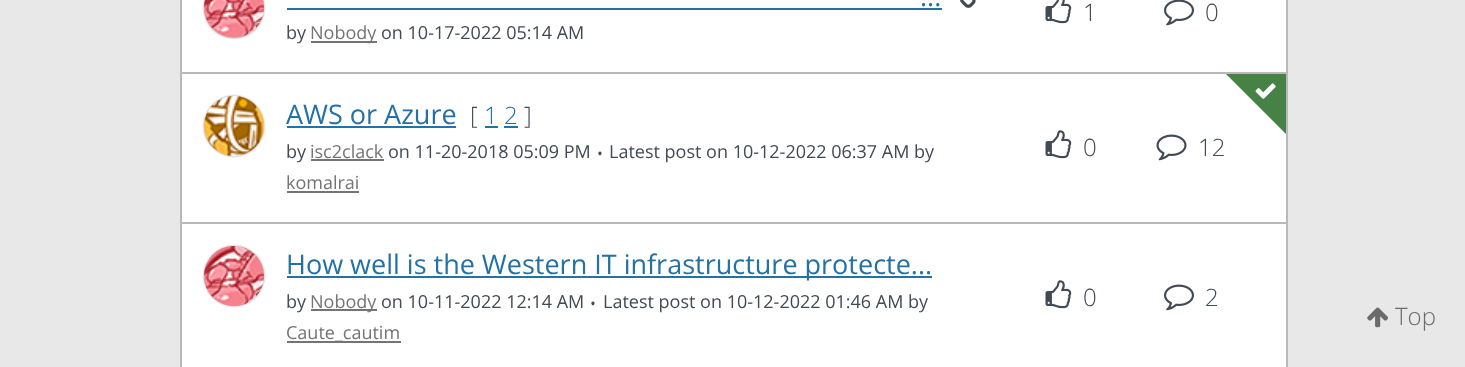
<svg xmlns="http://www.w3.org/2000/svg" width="1465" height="367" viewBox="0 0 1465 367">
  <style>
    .t1 { font: 27px Open Sans; fill: #2272a5; }
    .t2 { font: 18px Open Sans; fill: #424a54; }
    .t3 { font: 18px Open Sans; fill: #747474; }
    .t4 { font: 300 24px Open Sans; fill: #424a54; }
    .t5 { font: 300 24px Open Sans; fill: #2272a5; }
    .t6 { font: 300 21px Open Sans; fill: #424a54; }
    .t7 { font: 300 24px Open Sans; fill: #6b6b6b; }
  </style>
  <rect width="100%" height="100%" fill="#e8e8e8"/>
  <rect x="182" y="0" width="1104" height="72" fill="#fff"/>
  <rect x="1286" y="0" width="2" height="72" fill="#b9b9b9"/>
  <rect x="180" y="0" width="2" height="72" fill="#b9b9b9"/>
  <rect x="204" y="-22" width="60" height="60" rx="30" fill="#999" filter="blur(1px)"/>
  <image x="204" y="0" width="60" height="38" href="images/1.png"/>
  <text x="920" y="6" class="t1">...</text>
  <rect x="287" y="8" width="655" height="2" fill="#2272a5"/>
  <image x="960" y="0" width="16" height="8" href="images/2.png"/>
  <text x="286" y="39" class="t2">by</text>
  <rect x="311" y="41" width="66" height="2" fill="#747474"/>
  <text x="310" y="39" class="t3">Nobody</text>
  <text x="381" y="39" class="t2">on 10-17-2022 05:14 AM</text>
  <image x="1045" y="0" width="27" height="24" href="images/3.png"/>
  <text x="1083" y="21" class="t4">1</text>
  <image x="1164" y="0" width="30" height="26" href="images/4.png"/>
  <text x="1205" y="21" class="t4">0</text>
  <rect x="182" y="74" width="1104" height="148" fill="#fff"/>
  <rect x="180" y="72" width="1107" height="2" fill="#b9b9b9"/>
  <rect x="1286" y="72" width="2" height="150" fill="#b9b9b9"/>
  <rect x="180" y="72" width="2" height="150" fill="#b9b9b9"/>
  <rect x="204" y="96" width="60" height="60" rx="30" fill="#999" filter="blur(1px)"/>
  <image x="204" y="96" width="60" height="60" href="images/5.png"/>
  <text x="286" y="124" class="t1">AWS or Azure</text>
  <rect x="287" y="126" width="169" height="2" fill="#2272a5"/>
  <text x="470" y="124" class="t4">[</text>
  <text x="484" y="124" class="t5">1 2</text>
  <rect x="485" y="126" width="13" height="2" fill="#2272a5"/>
  <text x="524" y="124" class="t4">]</text>
  <rect x="504" y="126" width="14" height="2" fill="#2272a5"/>
  <text x="286" y="158" class="t2">by</text>
  <text x="310" y="158" class="t3">isc2clack</text>
  <rect x="311" y="159" width="73" height="2" fill="#747474"/>
  <text x="388" y="158" class="t2">on 11-20-2018 05:09 PM</text>
  <text x="596" y="161" class="t6">•</text>
  <text x="609" y="158" class="t2">Latest post on 10-12-2022 06:37 AM by</text>
  <text x="286" y="189" class="t3">komalrai</text>
  <rect x="287" y="191" width="72" height="2" fill="#747474"/>
  <image x="1045" y="130" width="27" height="29" href="images/6.png"/>
  <text x="1083" y="156" class="t4">0</text>
  <image x="1156" y="134" width="31" height="27" href="images/7.png"/>
  <text x="1198" y="156" class="t4">12</text>
  <path d="M1226 74H1286V134Z" fill="#468145"/>
  <image x="1255" y="83" width="21" height="16" href="images/8.png"/>
  <rect x="182" y="224" width="1104" height="143" fill="#fff"/>
  <rect x="180" y="222" width="1107" height="2" fill="#b9b9b9"/>
  <rect x="1286" y="222" width="2" height="145" fill="#b9b9b9"/>
  <rect x="180" y="222" width="2" height="145" fill="#b9b9b9"/>
  <rect x="204" y="246" width="60" height="60" rx="30" fill="#999" filter="blur(1px)"/>
  <image x="204" y="246" width="60" height="60" href="images/9.png"/>
  <rect x="287" y="276" width="645" height="2" fill="#2272a5"/>
  <text x="286" y="274" class="t1">How well is the Western IT infrastructure protecte...</text>
  <text x="286" y="308" class="t2">by</text>
  <rect x="311" y="309" width="66" height="2" fill="#747474"/>
  <text x="310" y="308" class="t3">Nobody</text>
  <text x="381" y="308" class="t2">on 10-11-2022 12:14 AM</text>
  <text x="589" y="311" class="t6">•</text>
  <text x="603" y="308" class="t2">Latest post on 10-12-2022 01:46 AM by</text>
  <rect x="287" y="341" width="114" height="2" fill="#747474"/>
  <text x="286" y="339" class="t3">Caute_cautim</text>
  <image x="1045" y="280" width="27" height="29" href="images/6.png"/>
  <text x="1083" y="306" class="t4">0</text>
  <image x="1164" y="284" width="30" height="27" href="images/10.png"/>
  <text x="1205" y="306" class="t4">2</text>
  <image x="1367" y="307" width="21" height="21" href="images/11.png"/>
  <text x="1395" y="325" class="t7">Top</text>
</svg>
